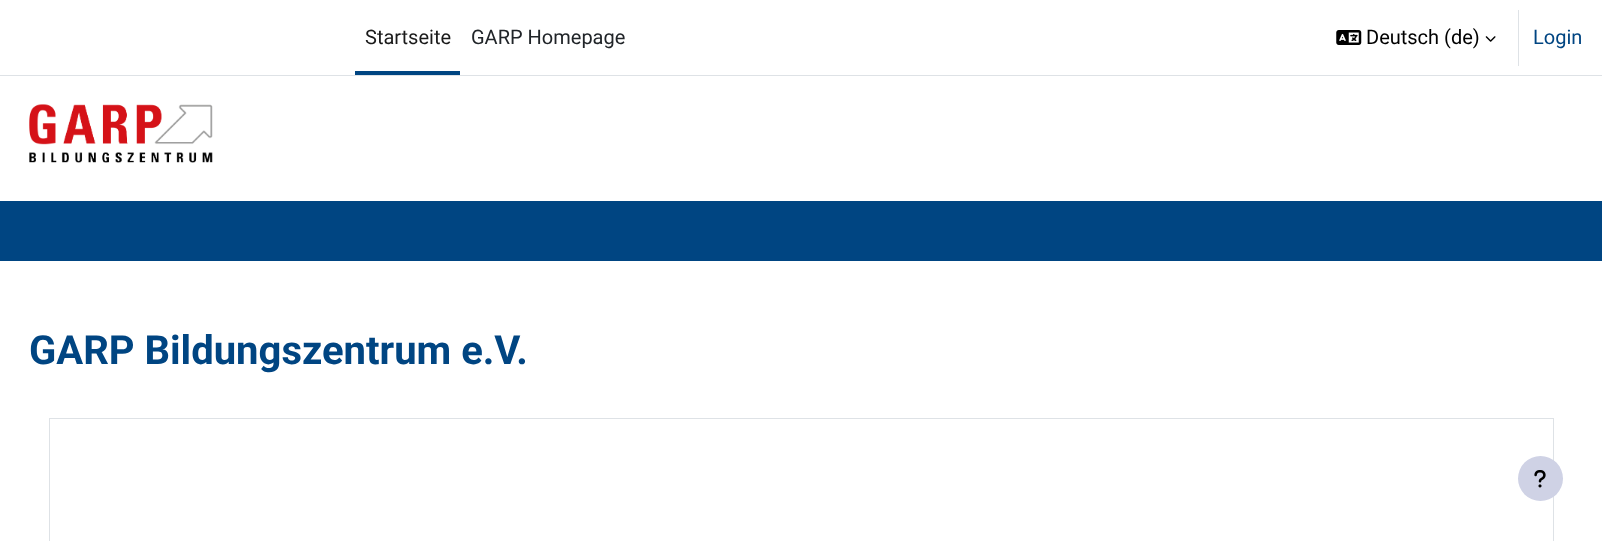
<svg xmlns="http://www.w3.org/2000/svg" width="1602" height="541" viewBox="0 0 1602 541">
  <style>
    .t1 { font: 20px Roboto; fill: #1a1a1a; }
    .t2 { font: 20px Roboto; fill: #212529; }
    .t3 { font: 20px Roboto; fill: #000; }
    .t4 { font: 20px Roboto; fill: #004582; }
    .t5 { font: bold 40px Roboto; fill: #004582; }
  </style>
  <rect width="100%" height="100%" fill="#fff"/>
  <rect x="0" y="75" width="1602" height="1" fill="#dee2e6"/>
  <rect x="355" y="71" width="105" height="4" fill="#004582"/>
  <text x="365" y="44" class="t1">Startseite</text>
  <text x="471" y="44" class="t2">GARP Homepage</text>
  <image x="1336" y="30" width="26" height="15" href="images/1.png"/>
  <text x="1366" y="44" class="t3">Deutsch (de)</text>
  <image x="1485" y="36" width="11" height="6" href="images/2.png"/>
  <rect x="1518" y="10" width="1" height="56" fill="#dee2e6"/>
  <text x="1533" y="44" class="t4">Login</text>
  <image x="29" y="104" width="184" height="59" href="images/3.png"/>
  <rect x="0" y="201" width="1602" height="60" fill="#004582"/>
  <text x="29" y="364" class="t5">GARP Bildungszentrum e.V.</text>
  <rect x="49.5" y="418.5" width="1504" height="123" fill="none" stroke="#dee2e6"/>
  <circle cx="1540.5" cy="478.5" r="22.5" fill="#cfd2e5"/>
  <image x="1534" y="470" width="12" height="18" href="images/4.png"/>
</svg>
